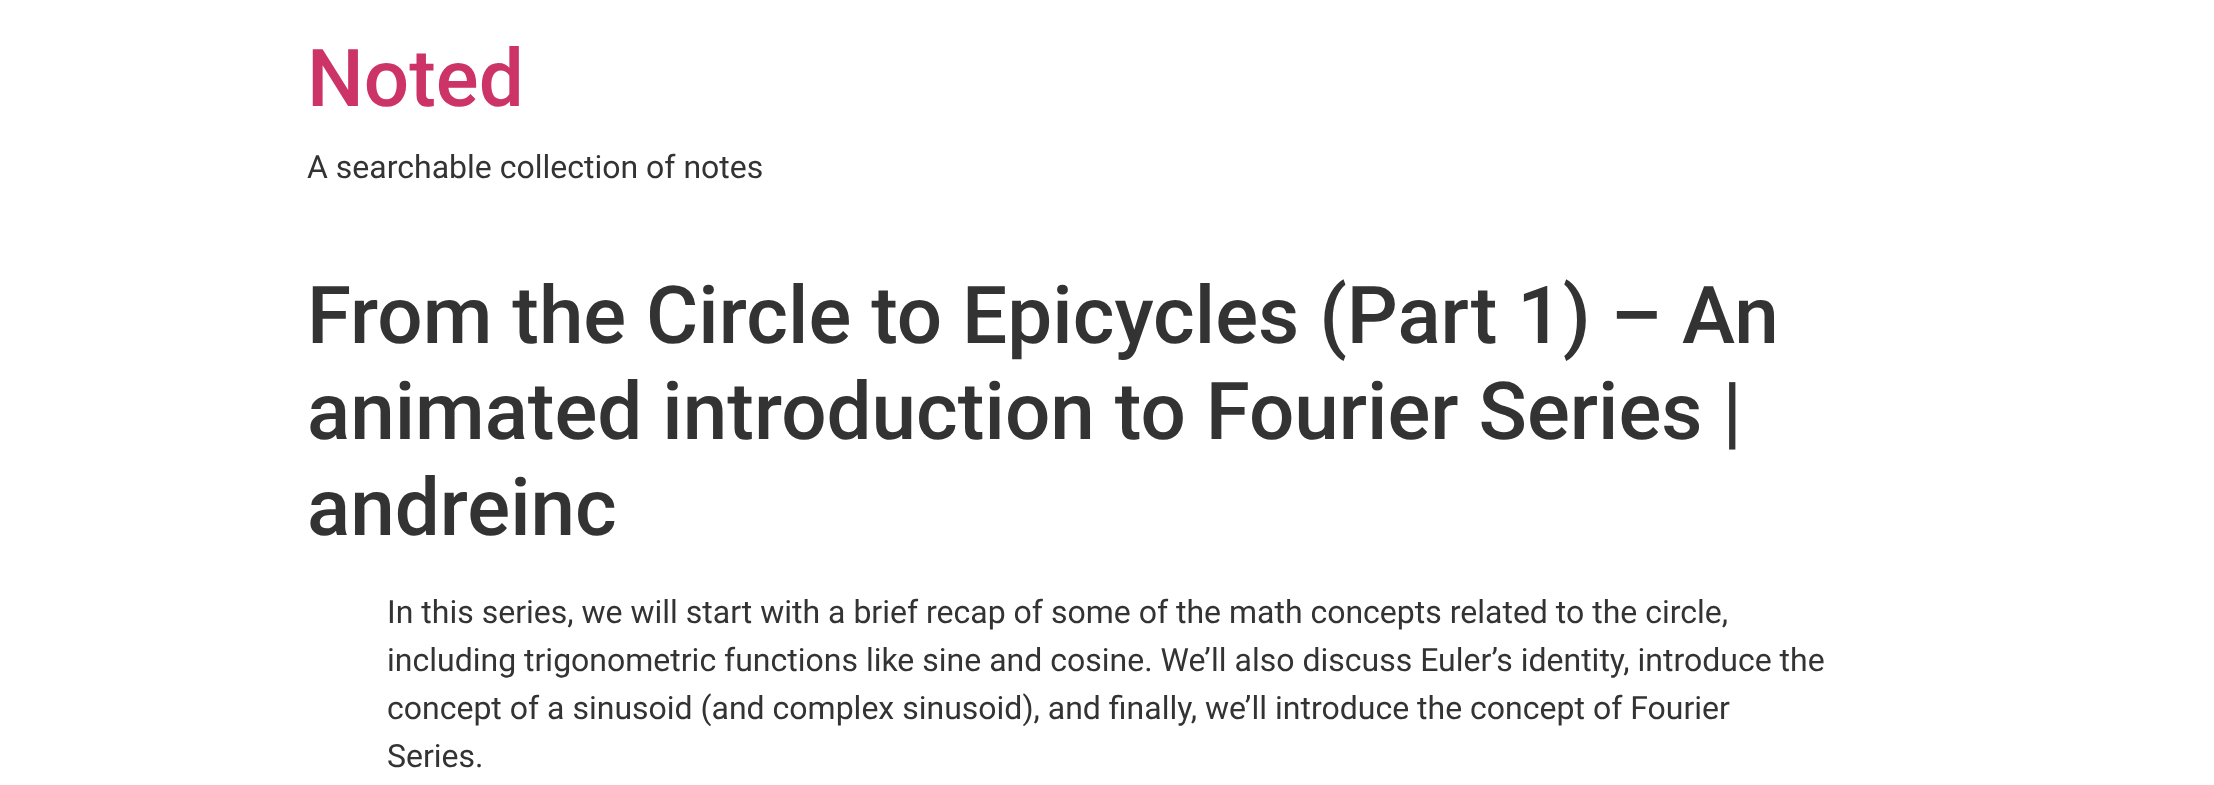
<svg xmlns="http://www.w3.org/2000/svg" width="2214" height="785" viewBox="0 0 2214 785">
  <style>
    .t1 { font: 500 80px Roboto; fill: #c36; }
    .t2 { font: 32px Roboto; fill: #333; }
    .t3 { font: 500 80px Roboto; fill: #333; }
  </style>
  <rect width="100%" height="100%" fill="#fff"/>
  <text x="307" y="106" class="t1">Noted</text>
  <text x="307" y="178" class="t2">A searchable collection of notes</text>
  <text x="307" y="343" class="t3">From the Circle to Epicycles (Part 1) – An</text>
  <text x="307" y="439" class="t3">animated introduction to Fourier Series |</text>
  <text x="307" y="535" class="t3">andreinc</text>
  <text x="387" y="623" class="t2">In this series, we will start with a brief recap of some of the math concepts related to the circle,</text>
  <text x="387" y="671" class="t2">including trigonometric functions like sine and cosine. We’ll also discuss Euler’s identity, introduce the</text>
  <text x="387" y="719" class="t2">concept of a sinusoid (and complex sinusoid), and finally, we’ll introduce the concept of Fourier</text>
  <text x="387" y="767" class="t2">Series.</text>
</svg>
